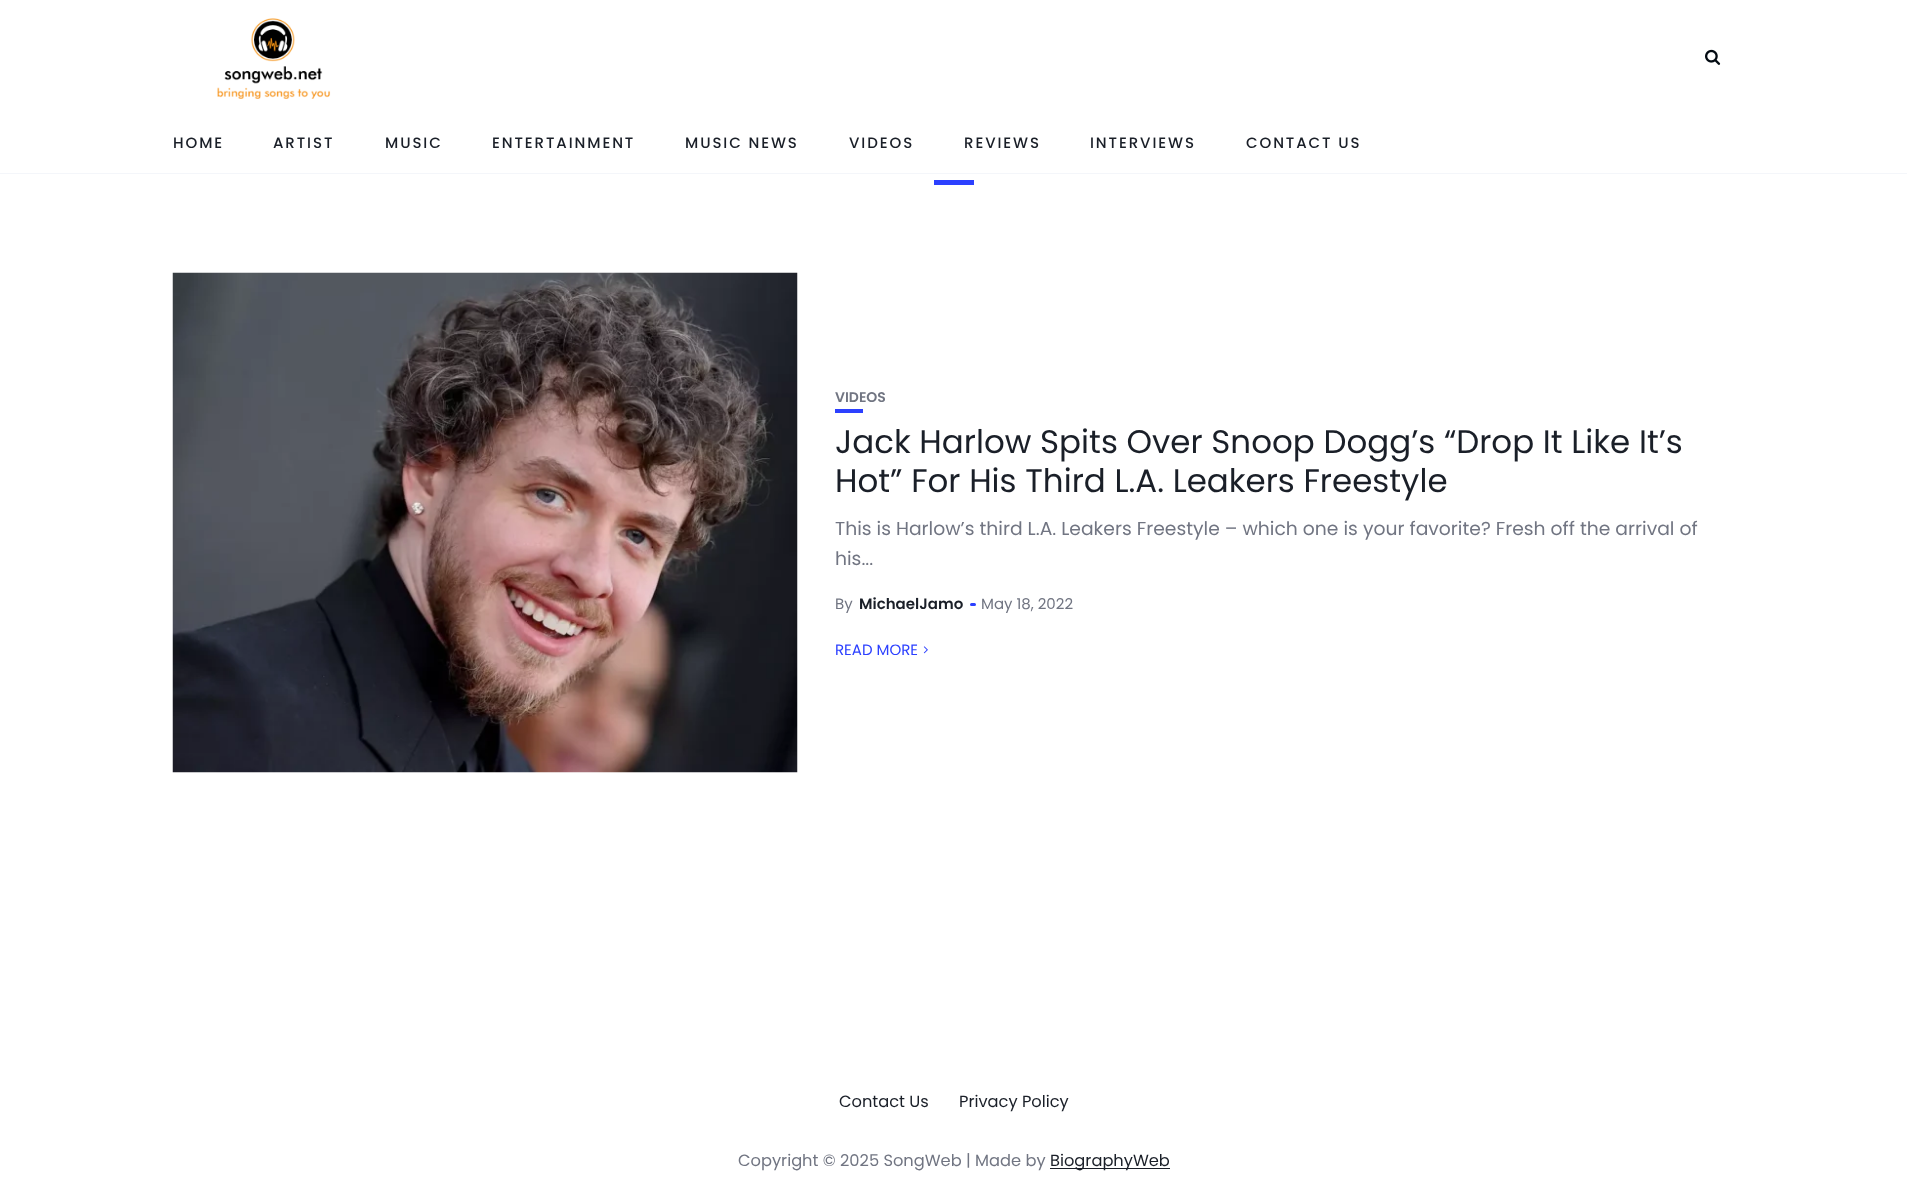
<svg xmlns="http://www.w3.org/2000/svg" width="1907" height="1191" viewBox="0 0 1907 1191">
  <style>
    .t1 { font: 500 15px Poppins; letter-spacing: 1.9px; fill: #1a1f28; }
    .t2 { font: 600 14px Poppins; fill: #717582; }
    .t3 { font: 32.5px Poppins; fill: #1a1f28; }
    .t4 { font: 18.75px Poppins; fill: #717582; }
    .t5 { font: 15px Poppins; fill: #717582; }
    .t6 { font: 600 15px Poppins; fill: #1a1f28; }
    .t7 { font: 15px Poppins; fill: #2c40ff; }
    .t8 { font: 16.25px Poppins; fill: #1a1f28; }
    .t9 { font: 16.25px Poppins; fill: #717582; }
  </style>
  <rect width="100%" height="100%" fill="#fff"/>
  <image x="217" y="18" width="114" height="81" href="images/1.png"/>
  <image x="1705" y="49" width="16" height="16" href="images/2.png"/>
  <rect x="0" y="173" width="1907" height="1" fill="#f4f6fa"/>
  <text x="173" y="148" class="t1">HOME</text>
  <text x="273" y="148" class="t1">ARTIST</text>
  <text x="385" y="148" class="t1">MUSIC</text>
  <text x="492" y="148" class="t1">ENTERTAINMENT</text>
  <text x="685" y="148" class="t1">MUSIC NEWS</text>
  <text x="849" y="148" class="t1">VIDEOS</text>
  <text x="964" y="148" class="t1">REVIEWS</text>
  <text x="1090" y="148" class="t1">INTERVIEWS</text>
  <text x="1246" y="148" class="t1">CONTACT US</text>
  <rect x="934" y="180" width="40" height="5" fill="#2c40ff"/>
  <image x="172" y="272" width="626" height="501" href="images/3.png"/>
  <text x="835" y="402" class="t2">VIDEOS</text>
  <rect x="835" y="409" width="28" height="4" fill="#2c40ff"/>
  <text x="835" y="453" class="t3">Jack Harlow Spits Over Snoop Dogg’s “Drop It Like It’s</text>
  <text x="835" y="492" class="t3">Hot” For His Third L.A. Leakers Freestyle</text>
  <text x="835" y="535" class="t4">This is Harlow’s third L.A. Leakers Freestyle – which one is your favorite? Fresh off the arrival of</text>
  <text x="835" y="565" class="t4">his...</text>
  <text x="835" y="609" class="t5">By</text>
  <text x="859" y="609" class="t6">MichaelJamo</text>
  <rect x="970" y="603" width="6" height="3" rx="1.5" fill="#2c40ff"/>
  <text x="981" y="609" class="t5">May 18, 2022</text>
  <text x="835" y="655" class="t7">READ MORE</text>
  <image x="923" y="646" width="5" height="8" href="images/4.png"/>
  <text x="839" y="1107" class="t8">Contact Us</text>
  <text x="959" y="1107" class="t8">Privacy Policy</text>
  <text x="738" y="1166" class="t9">Copyright © 2025 SongWeb | Made by</text>
  <rect x="1050" y="1168" width="120" height="1" fill="#1a1f28"/>
  <text x="1050" y="1166" class="t8">BiographyWeb</text>
</svg>
